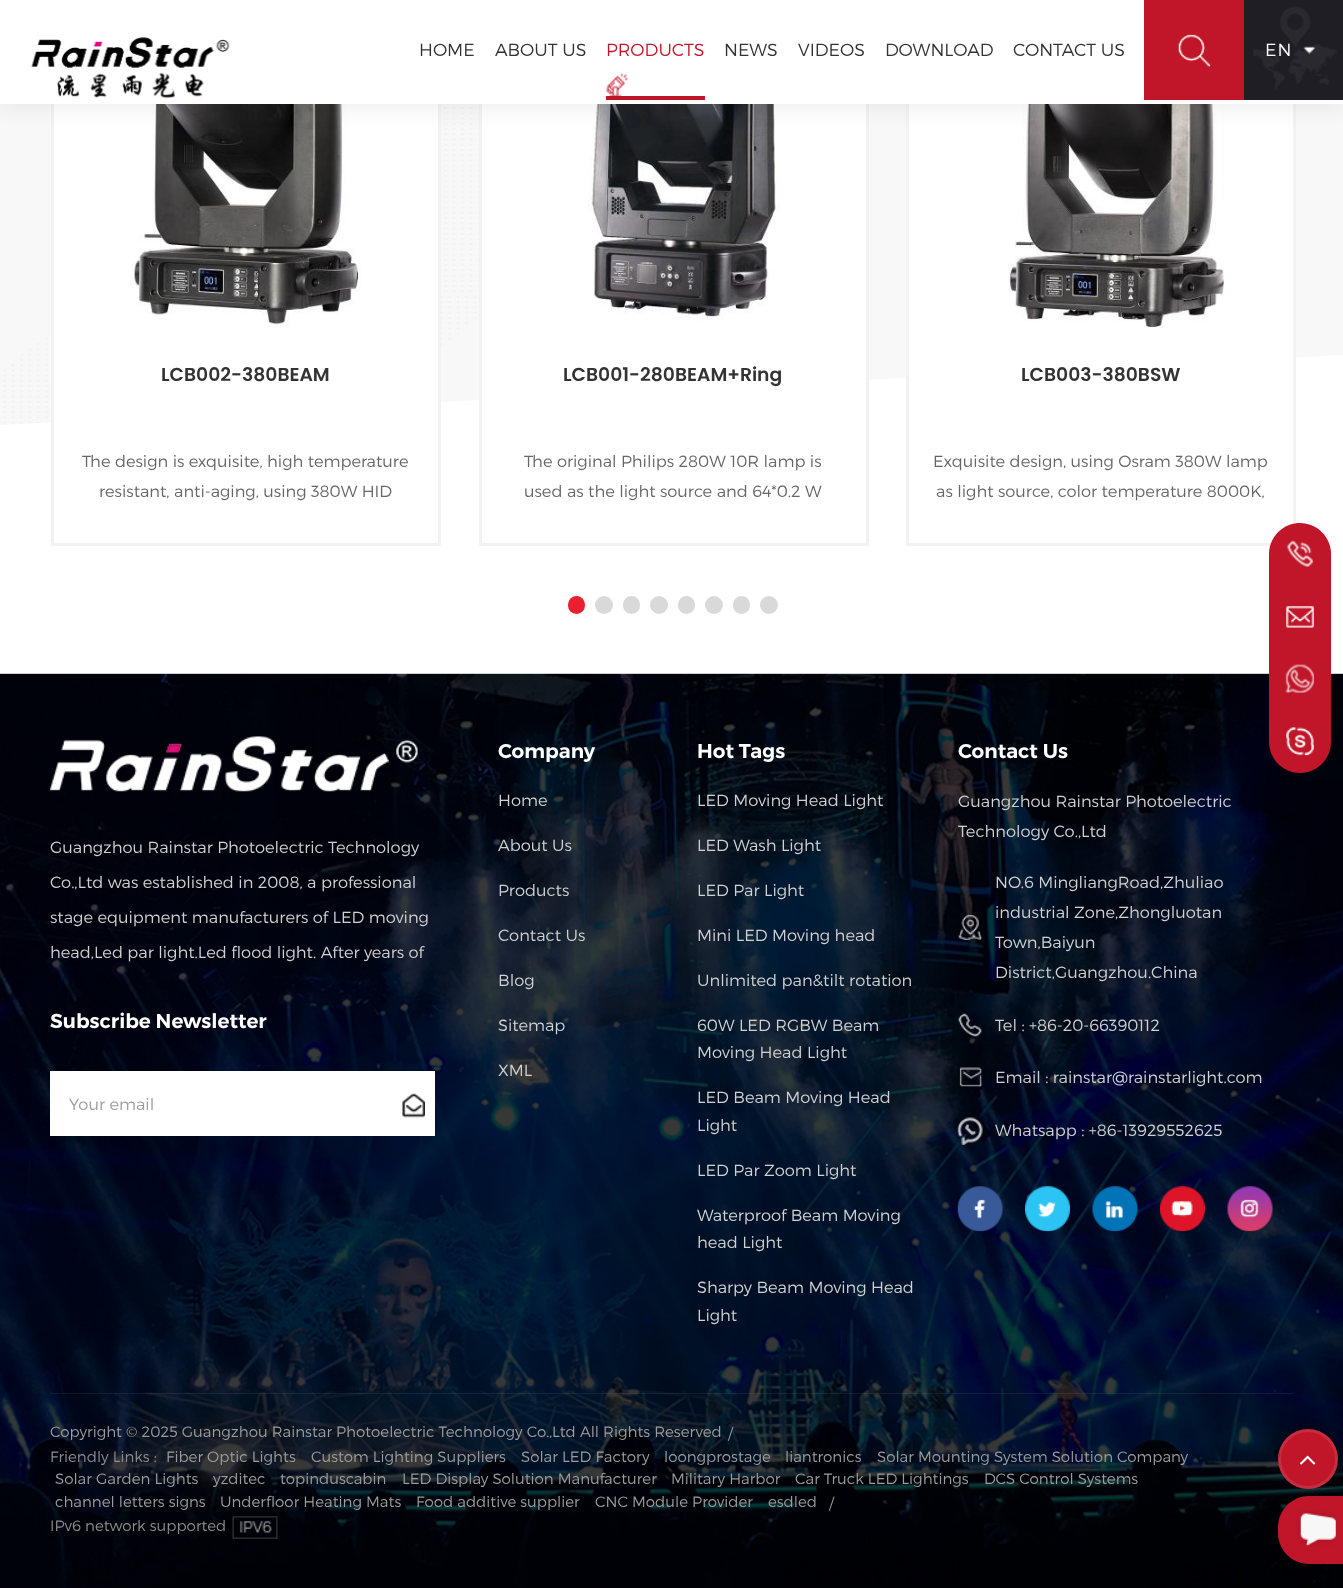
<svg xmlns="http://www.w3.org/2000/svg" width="1343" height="1588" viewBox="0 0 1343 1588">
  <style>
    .t1 { font: 300 17.5px Montserrat; fill: #333; }
    .t2 { font: 300 17.5px Montserrat; fill: #c1162a; }
    .t3 { font: 300 17.5px Montserrat; letter-spacing: 1px; fill: #fff; }
    .t4 { font: 600 18.75px Poppins; fill: #333; }
    .t5 { font: 300 16.25px Montserrat; fill: #666; }
    .t6 { font: 300 16.25px Montserrat; fill: #d1d1d1; }
    .t7 { font: 600 20px Montserrat; fill: #fff; }
    .t8 { font: 300 16.25px Montserrat; fill: #9d9d9d; }
    .t9 { font: 300 15px Montserrat; fill: #9d9d9d; }
    .t10 { font: 300 15px Montserrat; fill: #8d8d8d; }
  </style>
  <rect width="100%" height="100%" fill="#fff"/>
  <image x="0" y="104" width="1343" height="321" href="images/5.png"/>
  <rect x="54" y="104" width="384" height="319" fill="#fff"/>
  <rect x="52.5" y="-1.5" width="387" height="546" fill="none" stroke="#f2f2f2" stroke-width="3"/>
  <image x="131" y="104" width="230" height="224" href="images/6.png"/>
  <rect x="482" y="104" width="384" height="296" fill="#fff"/>
  <rect x="480.5" y="-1.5" width="387" height="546" fill="none" stroke="#f2f2f2" stroke-width="3"/>
  <image x="588" y="104" width="192" height="217" href="images/7.png"/>
  <rect x="909" y="104" width="384" height="274" fill="#fff"/>
  <rect x="907.5" y="-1.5" width="387" height="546" fill="none" stroke="#f2f2f2" stroke-width="3"/>
  <image x="1008" y="104" width="216" height="224" href="images/8.png"/>
  <rect x="-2" y="-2" width="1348" height="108" fill="#00000014" filter="blur(12.5px)"/>
  <rect x="0" y="0" width="1343" height="104" fill="#fff"/>
  <image x="31" y="37" width="199" height="62" href="images/1.png"/>
  <text x="419" y="56" class="t1">HOME</text>
  <text x="495" y="56" class="t1">ABOUT US</text>
  <text x="606" y="56" class="t2">PRODUCTS</text>
  <image x="606" y="73" width="22" height="23" href="images/2.png"/>
  <rect x="606" y="96" width="99" height="4" fill="#c1162a"/>
  <text x="724" y="56" class="t1">NEWS</text>
  <text x="798" y="56" class="t1">VIDEOS</text>
  <text x="885" y="56" class="t1">DOWNLOAD</text>
  <text x="1013" y="56" class="t1">CONTACT US</text>
  <rect x="1144" y="0" width="100" height="100" fill="#c1162a"/>
  <image x="1178" y="34" width="33" height="33" href="images/3.png"/>
  <rect x="1244" y="0" width="99" height="100" fill="#1e1e24"/>
  <image x="1253" y="6" width="84" height="85" href="images/4.png"/>
  <text x="1265" y="56" class="t3">EN</text>
  <text x="161" y="381" class="t4">LCB002-380BEAM</text>
  <text x="82" y="467" class="t5">The design is exquisite, high temperature</text>
  <text x="99" y="497" class="t5">resistant, anti-aging, using 380W HID</text>
  <text x="563" y="381" class="t4">LCB001-280BEAM+Ring</text>
  <text x="524" y="467" class="t5">The original Philips 280W 10R lamp is</text>
  <text x="524" y="497" class="t5">used as the light source and 64*0.2 W</text>
  <text x="1021" y="381" class="t4">LCB003-380BSW</text>
  <text x="933" y="467" class="t5">Exquisite design, using Osram 380W lamp</text>
  <text x="936" y="497" class="t5">as light source, color temperature 8000K,</text>
  <rect x="568" y="596" width="17" height="18" rx="8.5" fill="#ea202e"/>
  <circle cx="604" cy="605" r="9" fill="#d9d9d9"/>
  <rect x="623" y="596" width="17" height="18" rx="8.5" fill="#d9d9d9"/>
  <circle cx="659" cy="605" r="9" fill="#d9d9d9"/>
  <rect x="678" y="596" width="17" height="18" rx="8.5" fill="#d9d9d9"/>
  <circle cx="714" cy="605" r="9" fill="#d9d9d9"/>
  <rect x="733" y="596" width="17" height="18" rx="8.5" fill="#d9d9d9"/>
  <circle cx="769" cy="605" r="9" fill="#d9d9d9"/>
  <path d="M1300 523C1317 523 1331 537 1331 554V585H1269V554C1269 537 1283 523 1300 523Z" fill="#c1162a"/>
  <image x="1286" y="540" width="27" height="27" href="images/9.png"/>
  <image x="0" y="673" width="1343" height="915" href="images/13.png"/>
  <rect x="1269" y="585" width="62" height="125" fill="#c1162a"/>
  <image x="1285" y="664" width="29" height="29" href="images/10.png"/>
  <image x="1286" y="606" width="28" height="22" href="images/11.png"/>
  <path d="M1269 710H1331V742C1331 759 1317 773 1300 773C1283 773 1269 759 1269 742Z" fill="#c1162a"/>
  <image x="1286" y="727" width="28" height="29" href="images/12.png"/>
  <image x="50" y="736" width="368" height="56" href="images/14.png"/>
  <text x="50" y="853" class="t6">Guangzhou Rainstar Photoelectric Technology</text>
  <text x="50" y="888" class="t6">Co.,Ltd was established in 2008, a professional</text>
  <text x="50" y="923" class="t6">stage equipment manufacturers of LED moving</text>
  <text x="50" y="958" class="t6">head,Led par light.Led flood light. After years of</text>
  <text x="50" y="1028" class="t7">Subscribe Newsletter</text>
  <rect x="50" y="1071" width="385" height="65" fill="#fff"/>
  <text x="69" y="1110" class="t8">Your email</text>
  <image x="402" y="1093" width="23" height="25" href="images/15.png"/>
  <text x="498" y="758" class="t7">Company</text>
  <text x="498" y="806" class="t6">Home</text>
  <text x="498" y="851" class="t6">About Us</text>
  <text x="498" y="896" class="t6">Products</text>
  <text x="498" y="941" class="t6">Contact Us</text>
  <text x="498" y="986" class="t6">Blog</text>
  <text x="498" y="1031" class="t6">Sitemap</text>
  <text x="498" y="1076" class="t6">XML</text>
  <text x="697" y="758" class="t7">Hot Tags</text>
  <text x="697" y="806" class="t6">LED Moving Head Light</text>
  <text x="697" y="851" class="t6">LED Wash Light</text>
  <text x="697" y="896" class="t6">LED Par Light</text>
  <text x="697" y="941" class="t6">Mini LED Moving head</text>
  <text x="697" y="986" class="t6">Unlimited pan&amp;tilt rotation</text>
  <text x="697" y="1031" class="t6">60W LED RGBW Beam</text>
  <text x="697" y="1058" class="t6">Moving Head Light</text>
  <text x="697" y="1103" class="t6">LED Beam Moving Head</text>
  <text x="697" y="1131" class="t6">Light</text>
  <text x="697" y="1176" class="t6">LED Par Zoom Light</text>
  <text x="697" y="1221" class="t6">Waterproof Beam Moving</text>
  <text x="697" y="1248" class="t6">head Light</text>
  <text x="697" y="1293" class="t6">Sharpy Beam Moving Head</text>
  <text x="697" y="1321" class="t6">Light</text>
  <text x="958" y="758" class="t7">Contact Us</text>
  <text x="958" y="807" class="t6">Guangzhou Rainstar Photoelectric</text>
  <text x="958" y="837" class="t6">Technology Co.,Ltd</text>
  <image x="958" y="915" width="24" height="25" href="images/16.png"/>
  <text x="995" y="888" class="t6">NO.6 MingliangRoad,Zhuliao</text>
  <text x="995" y="918" class="t6">industrial Zone,Zhongluotan</text>
  <text x="995" y="948" class="t6">Town,Baiyun</text>
  <text x="995" y="978" class="t6">District,Guangzhou.China</text>
  <image x="958" y="1013" width="24" height="24" href="images/17.png"/>
  <text x="995" y="1031" class="t6">Tel : +86-20-66390112</text>
  <image x="959" y="1067" width="23" height="20" href="images/18.png"/>
  <text x="995" y="1083" class="t6">Email : rainstar@rainstarlight.com</text>
  <image x="957" y="1117" width="26" height="28" href="images/19.png"/>
  <text x="995" y="1136" class="t6">Whatsapp : +86-13929552625</text>
  <image x="957" y="1186" width="46" height="46" href="images/20.png"/>
  <image x="1025" y="1186" width="45" height="46" href="images/21.png"/>
  <image x="1092" y="1186" width="46" height="46" href="images/22.png"/>
  <image x="1160" y="1186" width="45" height="46" href="images/23.png"/>
  <image x="1227" y="1186" width="46" height="46" href="images/24.png"/>
  <rect x="50" y="1393" width="1244" height="1" fill="#ffffff12"/>
  <text x="50" y="1437" class="t9">Copyright © 2025 Guangzhou Rainstar Photoelectric Technology Co.,Ltd All Rights Reserved</text>
  <text x="728" y="1439" class="t9">/</text>
  <text x="50" y="1462" class="t10">Friendly Links :</text>
  <text x="166" y="1462" class="t9">Fiber Optic Lights</text>
  <text x="311" y="1462" class="t9">Custom Lighting Suppliers</text>
  <text x="521" y="1462" class="t9">Solar LED Factory</text>
  <text x="664" y="1462" class="t9">loongprostage</text>
  <text x="785" y="1462" class="t9">liantronics</text>
  <text x="877" y="1462" class="t9">Solar Mounting System Solution Company</text>
  <text x="55" y="1484" class="t9">Solar Garden Lights</text>
  <text x="213" y="1484" class="t9">yzditec</text>
  <text x="280" y="1484" class="t9">topinduscabin</text>
  <text x="402" y="1484" class="t9">LED Display Solution Manufacturer</text>
  <text x="671" y="1484" class="t9">Military Harbor</text>
  <text x="795" y="1484" class="t9">Car Truck LED Lightings</text>
  <text x="984" y="1484" class="t9">DCS Control Systems</text>
  <text x="55" y="1507" class="t9">channel letters signs</text>
  <text x="220" y="1507" class="t9">Underfloor Heating Mats</text>
  <text x="416" y="1507" class="t9">Food additive supplier</text>
  <text x="595" y="1507" class="t9">CNC Module Provider</text>
  <text x="768" y="1507" class="t9">esdled</text>
  <text x="829" y="1509" class="t9">/</text>
  <text x="50" y="1531" class="t10">IPv6 network supported</text>
  <image x="232" y="1516" width="46" height="23" href="images/25.png"/>
  <circle cx="1308" cy="1459" r="30" fill="#c1162a"/>
  <circle cx="1308" cy="1459" r="28.5" fill="none" stroke="#ffffff1a" stroke-width="3"/>
  <image x="1300" y="1455" width="16" height="10" href="images/26.png"/>
  <path d="M1309 1496H1343C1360 1496 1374 1510 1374 1527V1564H1309C1292 1564 1278 1550 1278 1533V1527C1278 1510 1292 1496 1309 1496Z" fill="#c1162a"/>
  <image x="1296" y="1510" width="40" height="37" href="images/27.png"/>
</svg>
